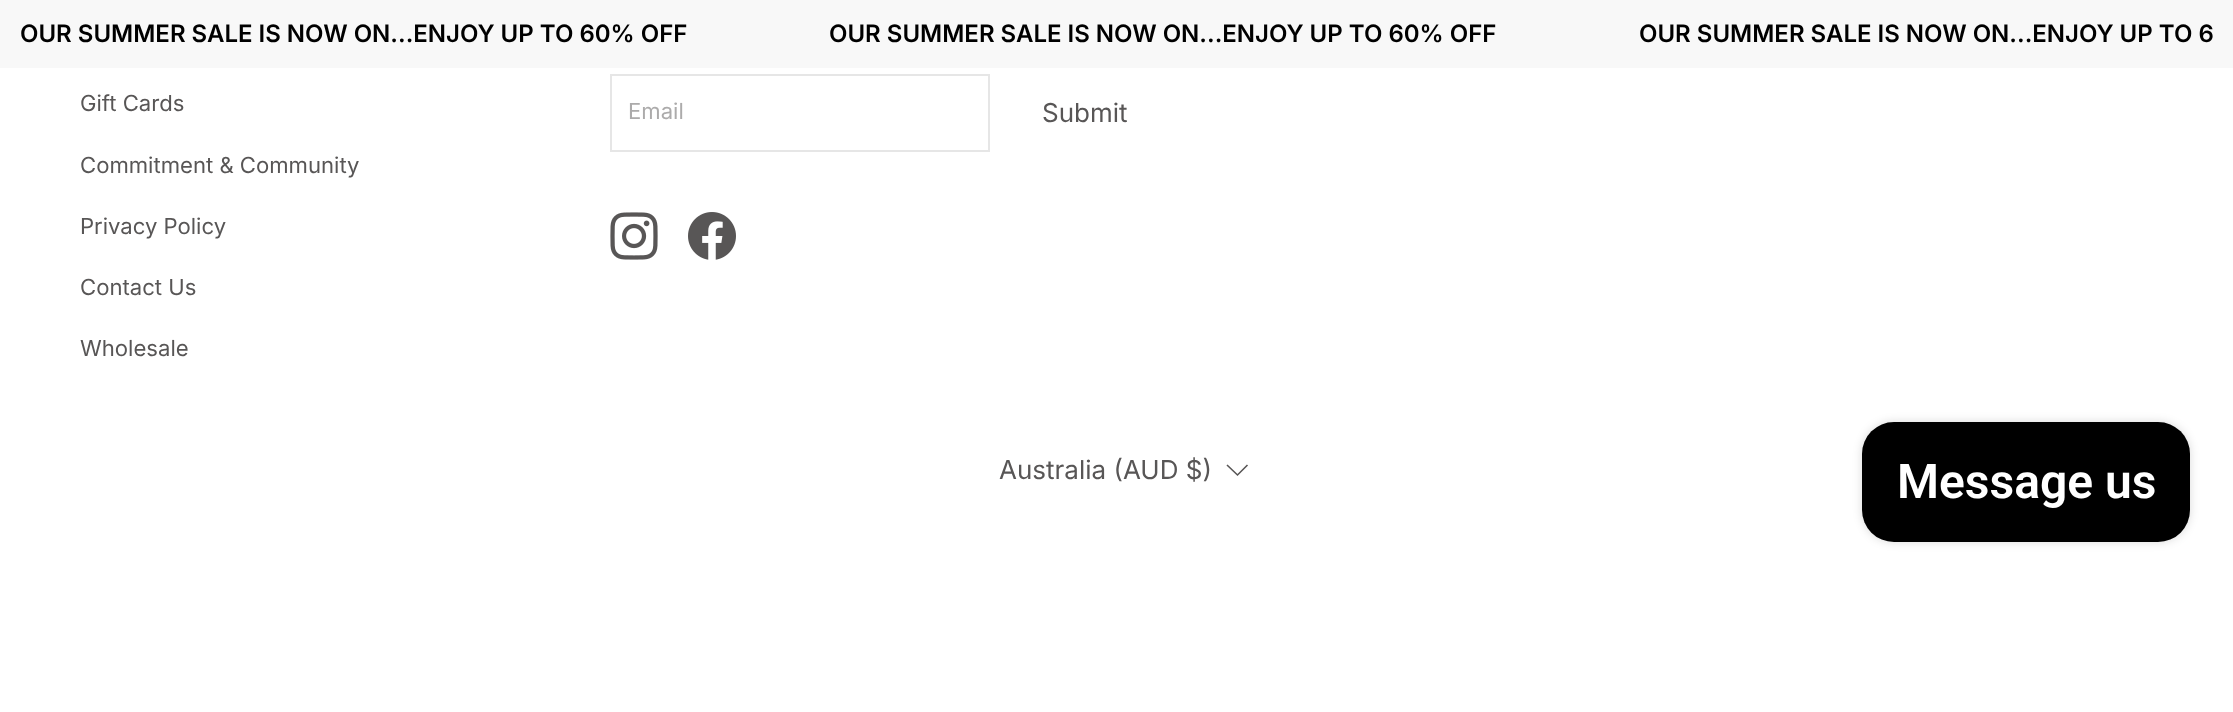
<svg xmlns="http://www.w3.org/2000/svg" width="2233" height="712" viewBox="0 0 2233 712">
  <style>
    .t1 { font: 600 24px Inter; fill: #000; }
    .t2 { font: 22.1px Inter; fill: #585656; }
    .t3 { font: 22.1px Inter; fill: #acabab; }
    .t4 { font: 26px Inter; fill: #585656; }
    .t5 { font: 600 48px Roboto; fill: #fff; }
  </style>
  <rect width="100%" height="100%" fill="#fff"/>
  <rect x="0" y="0" width="2233" height="68" fill="#f8f8f8"/>
  <text x="20" y="42" class="t1">OUR SUMMER SALE IS NOW ON...ENJOY UP TO 60% OFF</text>
  <text x="829" y="42" class="t1">OUR SUMMER SALE IS NOW ON...ENJOY UP TO 60% OFF</text>
  <text x="1639" y="42" class="t1">OUR SUMMER SALE IS NOW ON...ENJOY UP TO 6</text>
  <text x="80" y="111" class="t2">Gift Cards</text>
  <text x="80" y="173" class="t2">Commitment &amp; Community</text>
  <text x="80" y="234" class="t2">Privacy Policy</text>
  <text x="80" y="295" class="t2">Contact Us</text>
  <text x="80" y="356" class="t2">Wholesale</text>
  <rect x="611" y="75" width="378" height="76" fill="none" stroke="#e6e6e6" stroke-width="2"/>
  <text x="628" y="119" class="t3">Email</text>
  <text x="1042" y="122" class="t4">Submit</text>
  <image x="610" y="212" width="48" height="48" href="images/1.png"/>
  <image x="688" y="212" width="48" height="48" href="images/2.png"/>
  <text x="999" y="479" class="t4">Australia (AUD $)</text>
  <path d="M1227 465L1237.5 475L1247.5 465" fill="none" stroke="#585656" stroke-width="1.6"/>
  <rect x="1862" y="422" width="328" height="120" rx="32" fill="#00000026" filter="blur(5px)"/>
  <rect x="1862" y="422" width="328" height="120" rx="32" fill="#000"/>
  <text x="1897" y="498" class="t5">Message us</text>
</svg>
